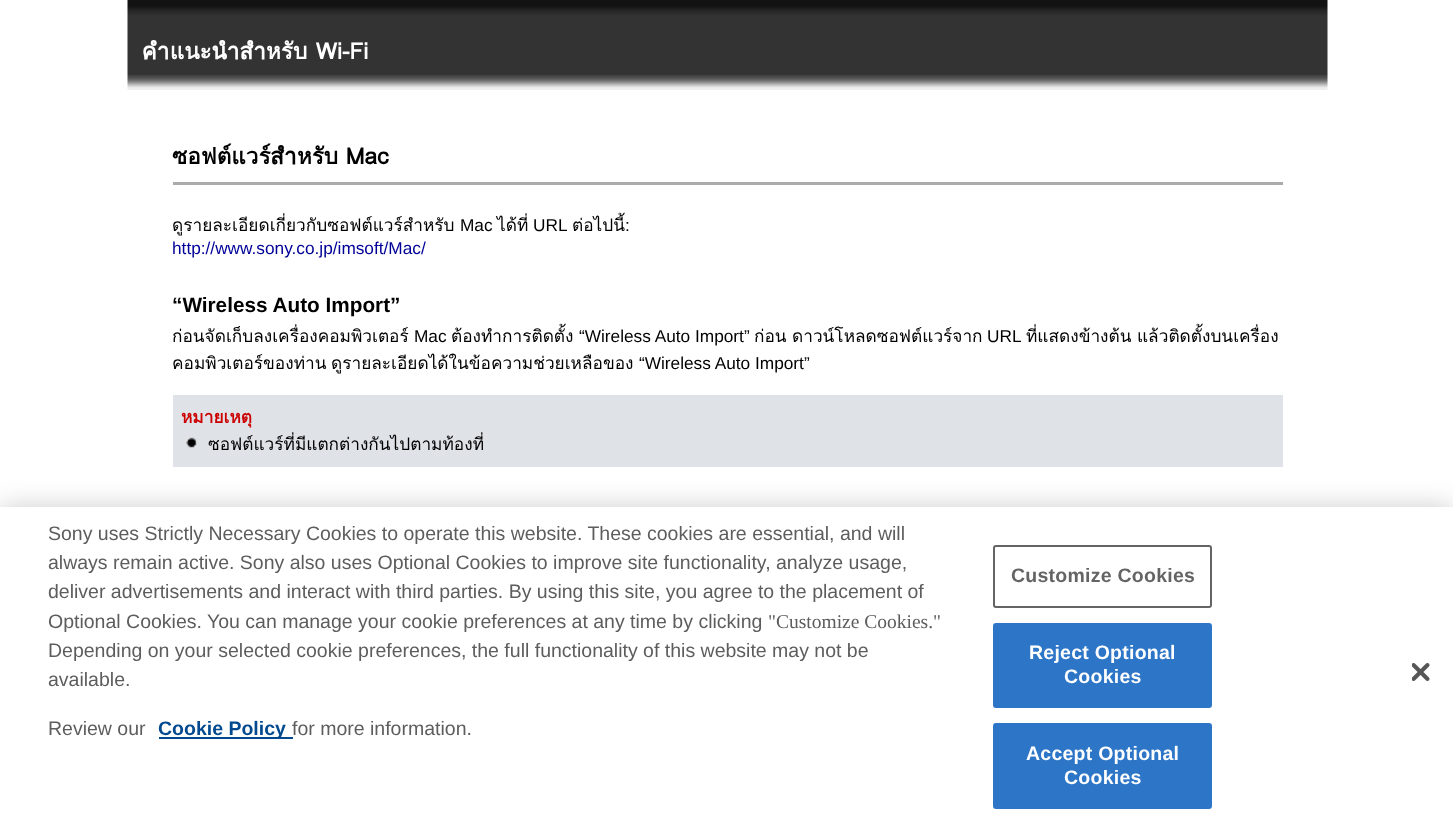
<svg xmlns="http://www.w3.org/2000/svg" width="1453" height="838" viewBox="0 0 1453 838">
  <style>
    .t1 { font: bold 22.5px Loma; fill: #fff; }
    .t2 { font: bold 22.5px Loma; fill: #000; }
    .t3 { font: 17.25px Loma; fill: #000; }
    .t4 { font: 17.25px Liberation Sans; fill: #000; }
    .t5 { font: 17.25px Liberation Sans; fill: #009; }
    .t6 { font: bold 20.75px Liberation Sans; fill: #000; }
    .t7 { font: bold 17.25px Loma; fill: #c00; }
    .t8 { font: 19.5px Liberation Sans; fill: #5d5d5d; }
    .t9 { font: 19.5px Liberation Serif; fill: #5d5d5d; }
    .t10 { font: bold 19.5px Liberation Sans; fill: #01498e; }
    .t11 { font: bold 19.5px Liberation Sans; letter-spacing: 0.25px; fill: #646464; }
    .t12 { font: bold 19.5px Liberation Sans; letter-spacing: 0.25px; fill: #fff; }
  </style>
  <rect width="100%" height="100%" fill="#fff"/>
  <image x="127" y="0" width="1201" height="90" href="images/1.png"/>
  <text x="142" y="59" word-spacing="1" class="t1">คำแนะนำสำหรับ Wi-Fi</text>
  <rect x="173" y="182" width="1110" height="3" fill="#aaa"/>
  <text x="172" y="164" class="t2">ซอฟต์แวร์สำหรับ Mac</text>
  <text x="172" y="231" class="t3">ดูรายละเอียดเกี่ยวกับซอฟต์แวร์สำหรับ</text>
  <text x="460" y="231" class="t4">Mac</text>
  <text x="497" y="231" class="t3">ได้ที่</text>
  <text x="533" y="231" class="t4">URL</text>
  <text x="572" y="231" class="t3">ต่อไปนี้</text>
  <text x="625" y="231" class="t4">:</text>
  <text x="172" y="254" class="t5">http://www.sony.co.jp/imsoft/Mac/</text>
  <text x="172" y="312" class="t6">“Wireless Auto Import”</text>
  <text x="172" y="342" class="t3">ก่อนจัดเก็บลงเครื่องคอมพิวเตอร์</text>
  <text x="414" y="342" class="t4">Mac</text>
  <text x="451" y="342" class="t3">ต้องทำการติดตั้ง</text>
  <text x="579" y="342" class="t4">“Wireless Auto Import”</text>
  <text x="754" y="342" class="t3">ก่อน</text>
  <text x="792" y="342" class="t3">ดาวน์โหลดซอฟต์แวร์จาก</text>
  <text x="987" y="342" class="t4">URL</text>
  <text x="1026" y="342" class="t3">ที่แสดงข้างต้น</text>
  <text x="1137" y="342" class="t3">แล้วติดตั้งบนเครื่อง</text>
  <text x="172" y="369" class="t3">คอมพิวเตอร์ของท่าน</text>
  <text x="331" y="369" class="t3">ดูรายละเอียดได้ในข้อความช่วยเหลือของ</text>
  <text x="639" y="369" class="t4">“Wireless Auto Import”</text>
  <rect x="173" y="395" width="1110" height="72" fill="#dfe3e8"/>
  <text x="181" y="423" class="t7">หมายเหตุ</text>
  <image x="186" y="437" width="12" height="11" href="images/2.png"/>
  <text x="208" y="450" class="t3">ซอฟต์แวร์ที่มีแตกต่างกันไปตามท้องที่</text>
  <rect x="0" y="507" width="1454" height="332" fill="#00000033" filter="blur(13.5px)"/>
  <rect x="0" y="507" width="1453" height="331" fill="#fff"/>
  <text x="48" y="540" class="t8">Sony uses Strictly Necessary Cookies to operate this website. These cookies are essential, and will</text>
  <text x="48" y="569" class="t8">always remain active. Sony also uses Optional Cookies to improve site functionality, analyze usage,</text>
  <text x="48" y="598" class="t8">deliver advertisements and interact with third parties. By using this site, you agree to the placement of</text>
  <text x="48" y="628" class="t8">Optional Cookies. You can manage your cookie preferences at any time by clicking</text>
  <text x="768" y="628" class="t9">"Customize Cookies."</text>
  <text x="48" y="657" class="t8">Depending on your selected cookie preferences, the full functionality of this website may not be</text>
  <text x="48" y="686" class="t8">available.</text>
  <text x="48" y="735" class="t8">Review our</text>
  <rect x="159" y="737" width="134" height="2" fill="#01498e"/>
  <text x="158" y="735" class="t10">Cookie Policy</text>
  <text x="292" y="735" class="t8">for more information.</text>
  <rect x="994" y="546" width="217" height="61" rx="2" fill="none" stroke="#646464" stroke-width="2"/>
  <text x="1011" y="582" class="t11">Customize Cookies</text>
  <rect x="994" y="624" width="217" height="83" rx="2" fill="#2d75c7" stroke="#2d75c7" stroke-width="2"/>
  <text x="1029" y="659" class="t12">Reject Optional</text>
  <text x="1064" y="683" class="t12">Cookies</text>
  <rect x="994" y="724" width="217" height="84" rx="2" fill="#2d75c7" stroke="#2d75c7" stroke-width="2"/>
  <text x="1026" y="760" class="t12">Accept Optional</text>
  <text x="1064" y="784" class="t12">Cookies</text>
  <image x="1412" y="663" width="18" height="18" href="images/3.png"/>
</svg>
